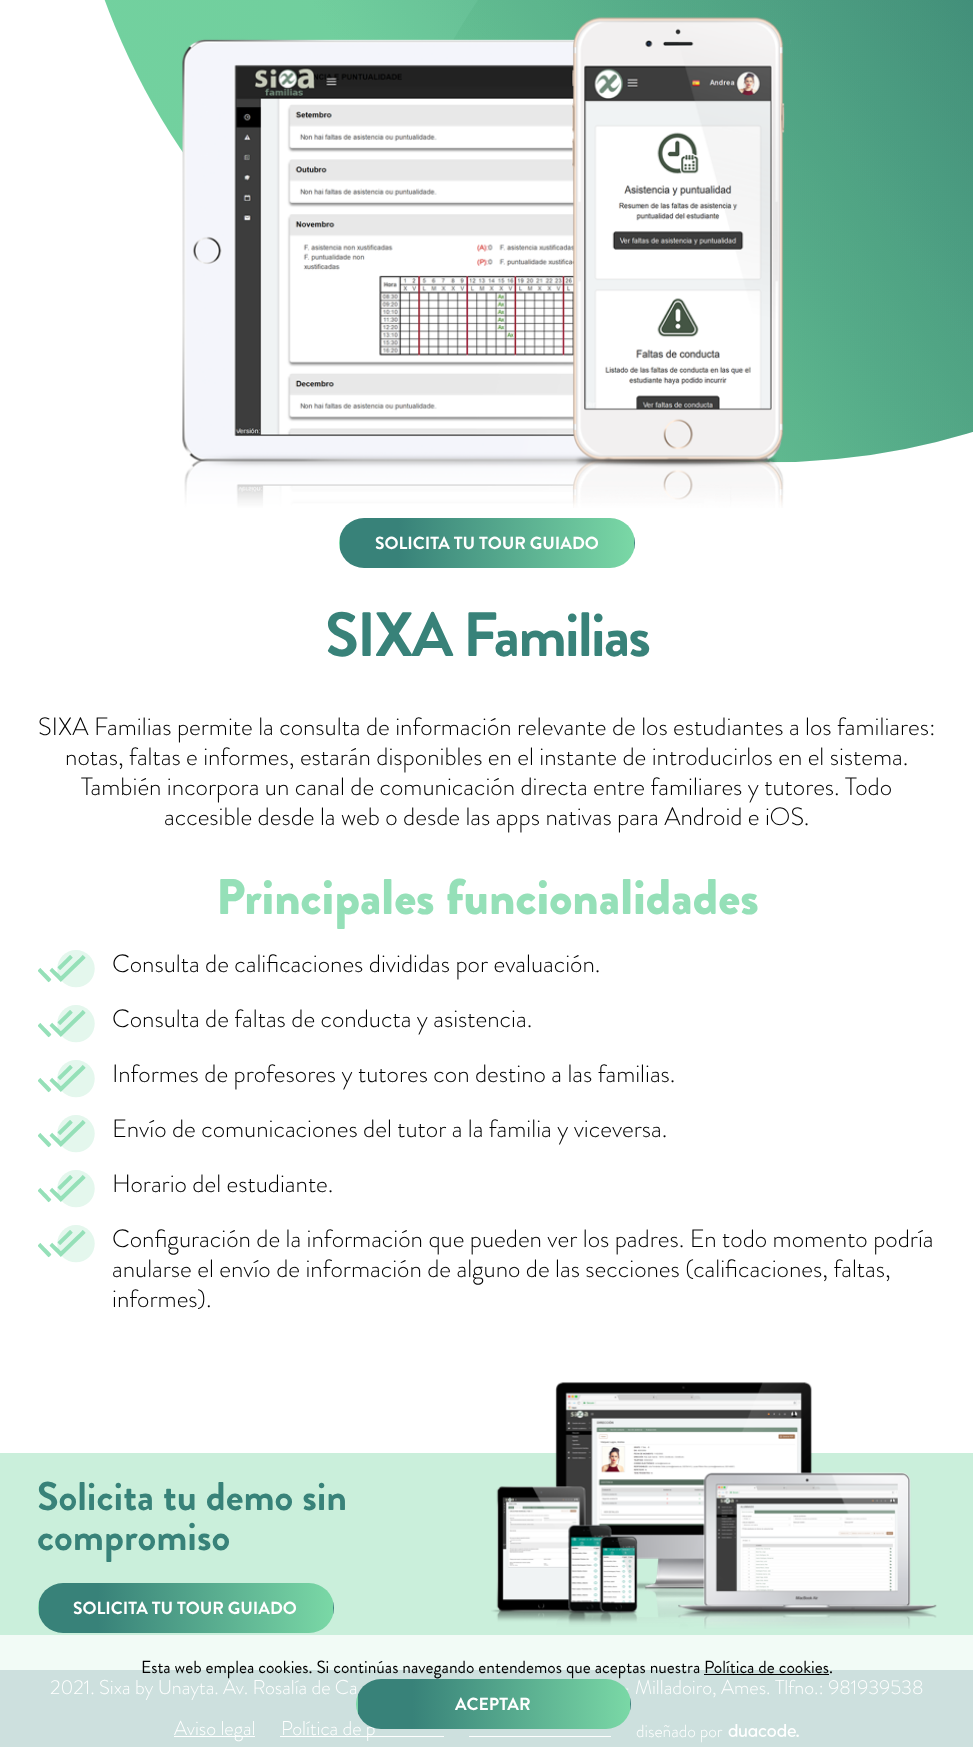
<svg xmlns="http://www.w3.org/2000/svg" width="973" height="1747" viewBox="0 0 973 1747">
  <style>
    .t1 { font: bold 17.5px Brandon Grotesque; fill: #fff; }
    .t2 { font: bold 62.5px Brandon Grotesque; letter-spacing: -2.1px; fill: #388279; }
    .t3 { font: 300 25px Brandon Grotesque; fill: #000; }
    .t4 { font: 900 50px Brandon Grotesque; fill: #95e0b8; }
    .t5 { font: bold 40px Brandon Grotesque; fill: #388279; }
    .t6 { font: 300 20px Brandon Grotesque; fill: #fff; }
    .t7 { font: 300 17.5px Brandon Grotesque; fill: #fff; }
    .t8 { font: 17.5px Brandon Grotesque; fill: #000; }
  </style>
  <defs>
    <clipPath id="clip1"><rect x="339" y="518" width="296" height="50" rx="25"/></clipPath>
    <linearGradient id="g1" gradientUnits="userSpaceOnUse" x1="46" y1="543" x2="340" y2="543"><stop offset="0.2" stop-color="#388279"/><stop offset="1" stop-color="#7ad8a6"/></linearGradient>
    <linearGradient id="g2" gradientUnits="userSpaceOnUse" x1="340" y1="543" x2="634" y2="543"><stop offset="0.2" stop-color="#388279"/><stop offset="1" stop-color="#7ad8a6"/></linearGradient>
    <linearGradient id="g3" gradientUnits="userSpaceOnUse" x1="634" y1="543" x2="928" y2="543"><stop offset="0.2" stop-color="#388279"/><stop offset="1" stop-color="#7ad8a6"/></linearGradient>
    <clipPath id="clip2"><rect x="38" y="1583" width="296" height="50" rx="25"/></clipPath>
    <linearGradient id="g4" gradientUnits="userSpaceOnUse" x1="-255" y1="1608" x2="39" y2="1608"><stop offset="0.2" stop-color="#388279"/><stop offset="1" stop-color="#7ad8a6"/></linearGradient>
    <linearGradient id="g5" gradientUnits="userSpaceOnUse" x1="39" y1="1608" x2="333" y2="1608"><stop offset="0.2" stop-color="#388279"/><stop offset="1" stop-color="#7ad8a6"/></linearGradient>
    <linearGradient id="g6" gradientUnits="userSpaceOnUse" x1="333" y1="1608" x2="626" y2="1608"><stop offset="0.2" stop-color="#388279"/><stop offset="1" stop-color="#7ad8a6"/></linearGradient>
    <clipPath id="clip3"><rect x="356" y="1679" width="275" height="50" rx="25"/></clipPath>
    <linearGradient id="g7" gradientUnits="userSpaceOnUse" x1="85" y1="1704" x2="358" y2="1704"><stop offset="0.2" stop-color="#388279"/><stop offset="1" stop-color="#7ad8a6"/></linearGradient>
    <linearGradient id="g8" gradientUnits="userSpaceOnUse" x1="358" y1="1704" x2="630" y2="1704"><stop offset="0.2" stop-color="#388279"/><stop offset="1" stop-color="#7ad8a6"/></linearGradient>
    <linearGradient id="g9" gradientUnits="userSpaceOnUse" x1="630" y1="1704" x2="903" y2="1704"><stop offset="0.2" stop-color="#388279"/><stop offset="1" stop-color="#7ad8a6"/></linearGradient>
  </defs>
  <rect width="100%" height="100%" fill="#fff"/>
  <image x="104" y="0" width="869" height="463" href="images/1.png"/>
  <image x="182" y="17" width="609" height="491" href="images/2.png"/>
  <g clip-path="url(#clip1)">
    <rect x="339" y="536" width="1" height="14" fill="url(#g1)"/>
    <rect x="340" y="518" width="294" height="50" fill="url(#g2)"/>
    <rect x="634" y="536" width="1" height="14" fill="url(#g3)"/>
  </g>
  <text x="375" y="549" class="t1">SOLICITA TU TOUR GUIADO</text>
  <text x="325" y="656" class="t2">SIXA Familias</text>
  <text x="38" y="735" class="t3">SIXA Familias permite la consulta de información relevante de los estudiantes a los familiares:</text>
  <text x="65" y="765" class="t3">notas, faltas e informes, estarán disponibles en el instante de introducirlos en el sistema.</text>
  <text x="81" y="795" class="t3">También incorpora un canal de comunicación directa entre familiares y tutores. Todo</text>
  <text x="164" y="825" class="t3">accesible desde la web o desde las apps nativas para Android e iOS.</text>
  <text x="216" y="914" class="t4">Principales funcionalidades</text>
  <image x="38" y="950" width="57" height="38" href="images/3.png"/>
  <text x="112" y="972" class="t3">Consulta de calificaciones divididas por evaluación.</text>
  <image x="38" y="1005" width="57" height="38" href="images/3.png"/>
  <text x="112" y="1027" class="t3">Consulta de faltas de conducta y asistencia.</text>
  <image x="38" y="1060" width="57" height="38" href="images/3.png"/>
  <text x="112" y="1082" class="t3">Informes de profesores y tutores con destino a las familias.</text>
  <image x="38" y="1115" width="57" height="38" href="images/3.png"/>
  <text x="112" y="1137" class="t3">Envío de comunicaciones del tutor a la familia y viceversa.</text>
  <image x="38" y="1170" width="57" height="38" href="images/4.png"/>
  <text x="112" y="1192" class="t3">Horario del estudiante.</text>
  <image x="38" y="1225" width="57" height="38" href="images/3.png"/>
  <text x="112" y="1247" class="t3">Configuración de la información que pueden ver los padres. En todo momento podría</text>
  <text x="112" y="1277" class="t3">anularse el envío de información de alguno de las secciones (calificaciones, faltas,</text>
  <text x="112" y="1307" class="t3">informes).</text>
  <rect x="0" y="1453" width="973" height="182" fill="#caefdb"/>
  <rect x="0" y="1635" width="973" height="35" fill="#f2fbf6"/>
  <text x="37" y="1510" class="t5">Solicita tu demo sin</text>
  <text x="37" y="1550" class="t5">compromiso</text>
  <g clip-path="url(#clip2)">
    <rect x="38" y="1601" width="1" height="14" fill="url(#g4)"/>
    <rect x="39" y="1583" width="294" height="50" fill="url(#g5)"/>
    <rect x="333" y="1601" width="1" height="14" fill="url(#g6)"/>
  </g>
  <text x="73" y="1614" class="t1">SOLICITA TU TOUR GUIADO</text>
  <image x="491" y="1382" width="446" height="247" href="images/5.png"/>
  <rect x="0" y="1670" width="973" height="77" fill="#cde0de"/>
  <text x="50" y="1694" class="t6">2021. Sixa by Unayta. Av. Rosalía de Ca</text>
  <text x="621" y="1694" class="t6">- Milladoiro, Ames. Tlfno.: 981939538</text>
  <rect x="174" y="1736" width="81" height="1" fill="#fff"/>
  <text x="174" y="1735" class="t6">Aviso legal</text>
  <rect x="280" y="1736" width="164" height="1" fill="#fff"/>
  <text x="281" y="1735" class="t6">Política de p</text>
  <rect x="469" y="1736" width="142" height="1" fill="#fff"/>
  <text x="636" y="1737" class="t7">diseñado por</text>
  <image x="728" y="1724" width="71" height="13" href="images/6.png"/>
  <text x="141" y="1673" class="t8">Esta web emplea cookies. Si continúas navegando entendemos que aceptas nuestra Política de cookies.</text>
  <rect x="704" y="1674" width="125" height="1" fill="#000"/>
  <g clip-path="url(#clip3)">
    <rect x="356" y="1694" width="2" height="20" fill="url(#g7)"/>
    <rect x="358" y="1679" width="272" height="50" fill="url(#g8)"/>
    <rect x="630" y="1697" width="1" height="14" fill="url(#g9)"/>
  </g>
  <text x="455" y="1710" class="t1">ACEPTAR</text>
</svg>
